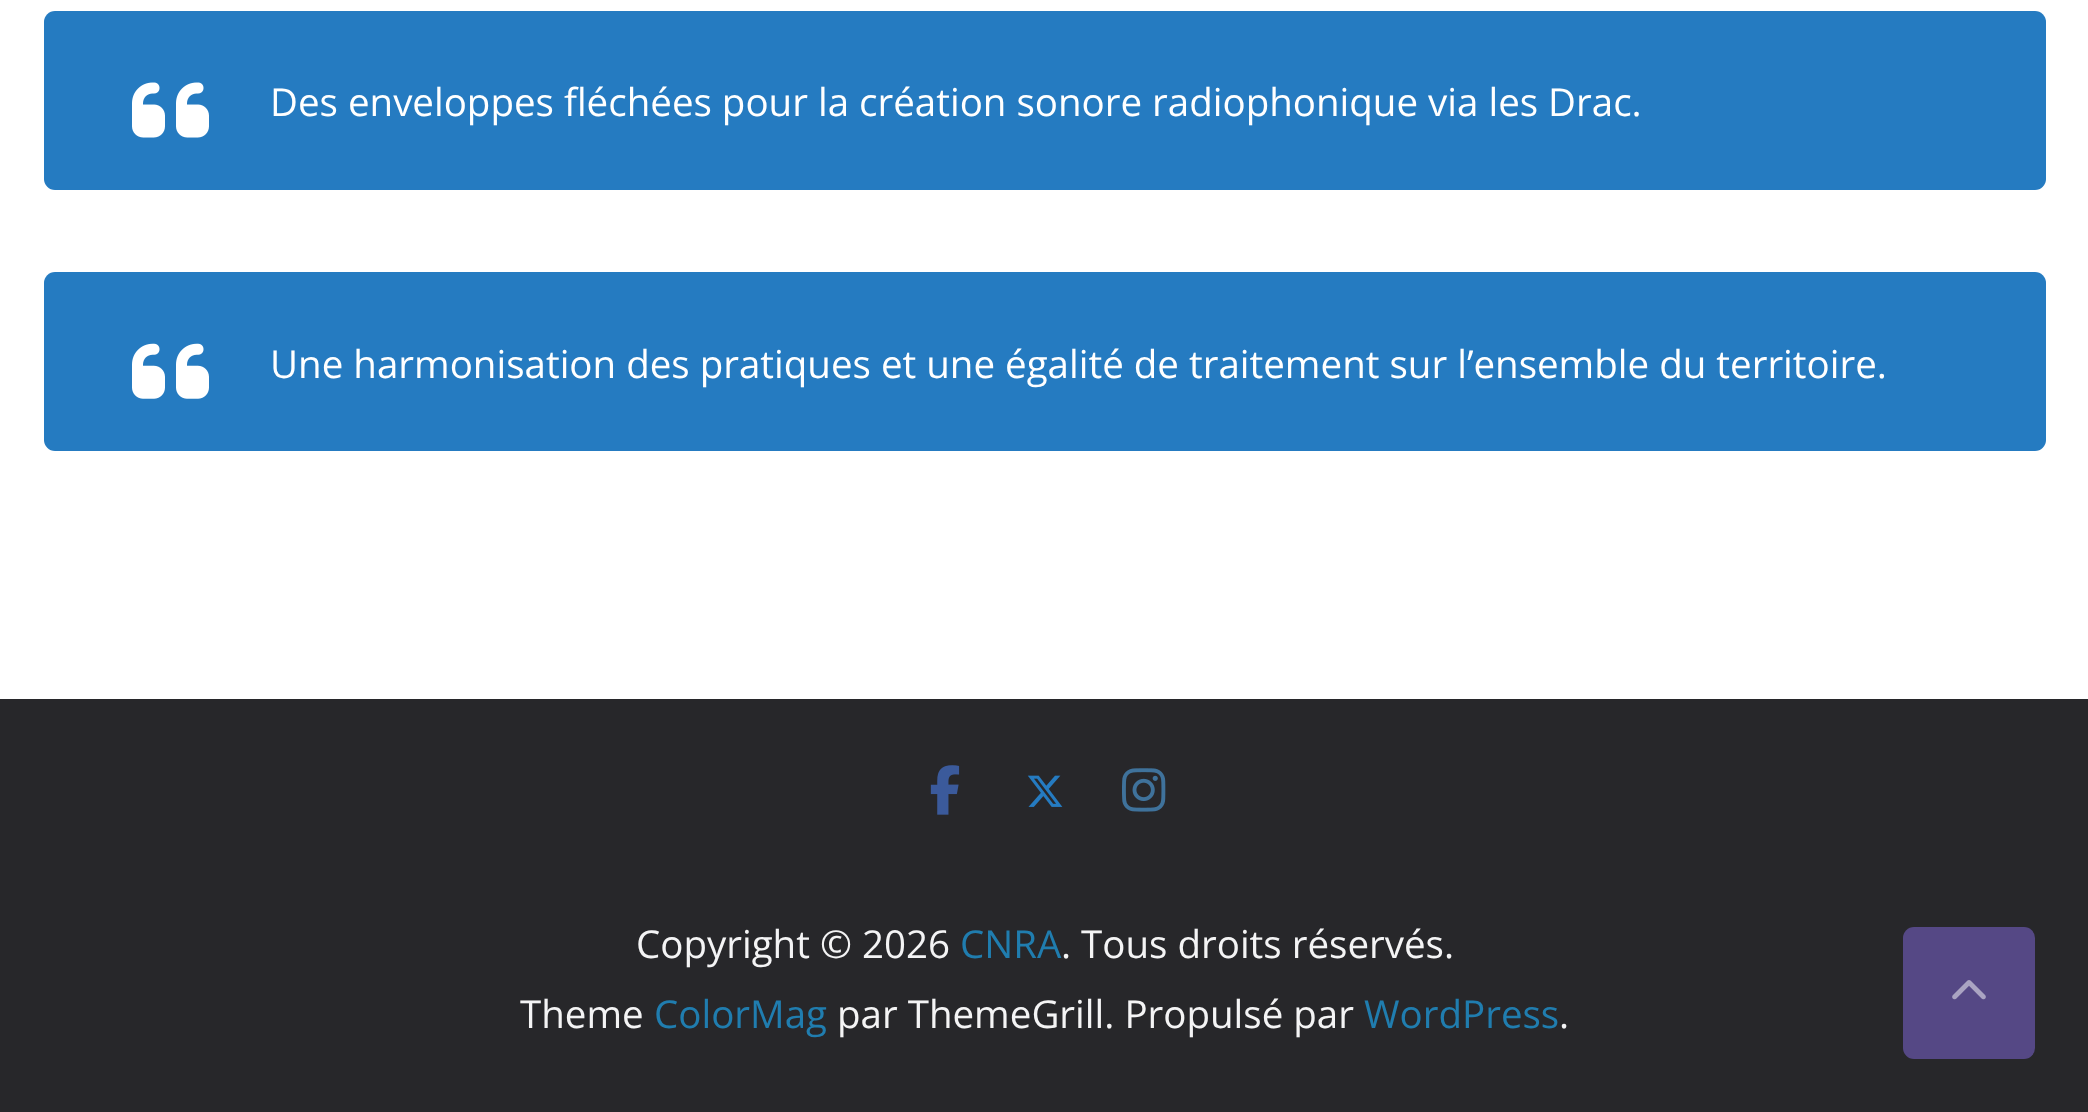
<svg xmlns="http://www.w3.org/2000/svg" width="2088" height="1112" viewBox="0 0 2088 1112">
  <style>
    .t1 { font: 38.5px Open Sans; fill: #fff; }
    .t2 { font: 38.5px Open Sans; fill: #f4f4f5; }
    .t3 { font: 38.5px Open Sans; fill: #207daf; }
  </style>
  <rect width="100%" height="100%" fill="#fff"/>
  <rect x="44" y="11" width="2002" height="179" rx="11" fill="#257bc1"/>
  <image x="132" y="82" width="77" height="56" href="images/1.png"/>
  <text x="270" y="116" class="t1">Des enveloppes fléchées pour la création sonore radiophonique via les Drac.</text>
  <rect x="44" y="272" width="2002" height="179" rx="11" fill="#257bc1"/>
  <image x="132" y="343" width="77" height="56" href="images/2.png"/>
  <text x="270" y="378" class="t1">Une harmonisation des pratiques et une égalité de traitement sur l’ensemble du territoire.</text>
  <rect x="0" y="699" width="2088" height="413" fill="#27272a"/>
  <image x="930" y="765" width="30" height="50" href="images/3.png"/>
  <image x="1027" y="775" width="36" height="32" href="images/4.png"/>
  <image x="1122" y="768" width="44" height="44" href="images/5.png"/>
  <text x="636" y="958" class="t2">Copyright © 2026</text>
  <text x="960" y="958" class="t3">CNRA</text>
  <text x="1061" y="958" class="t2">. Tous droits réservés.</text>
  <text x="520" y="1028" class="t2">Theme</text>
  <text x="654" y="1028" class="t3">ColorMag</text>
  <text x="837" y="1028" class="t2">par ThemeGrill. Propulsé par</text>
  <text x="1364" y="1028" class="t3">WordPress</text>
  <text x="1559" y="1028" class="t2">.</text>
  <rect x="1903" y="927" width="132" height="132" rx="11" fill="#554885"/>
  <image x="1952" y="980" width="34" height="20" href="images/6.png"/>
</svg>
